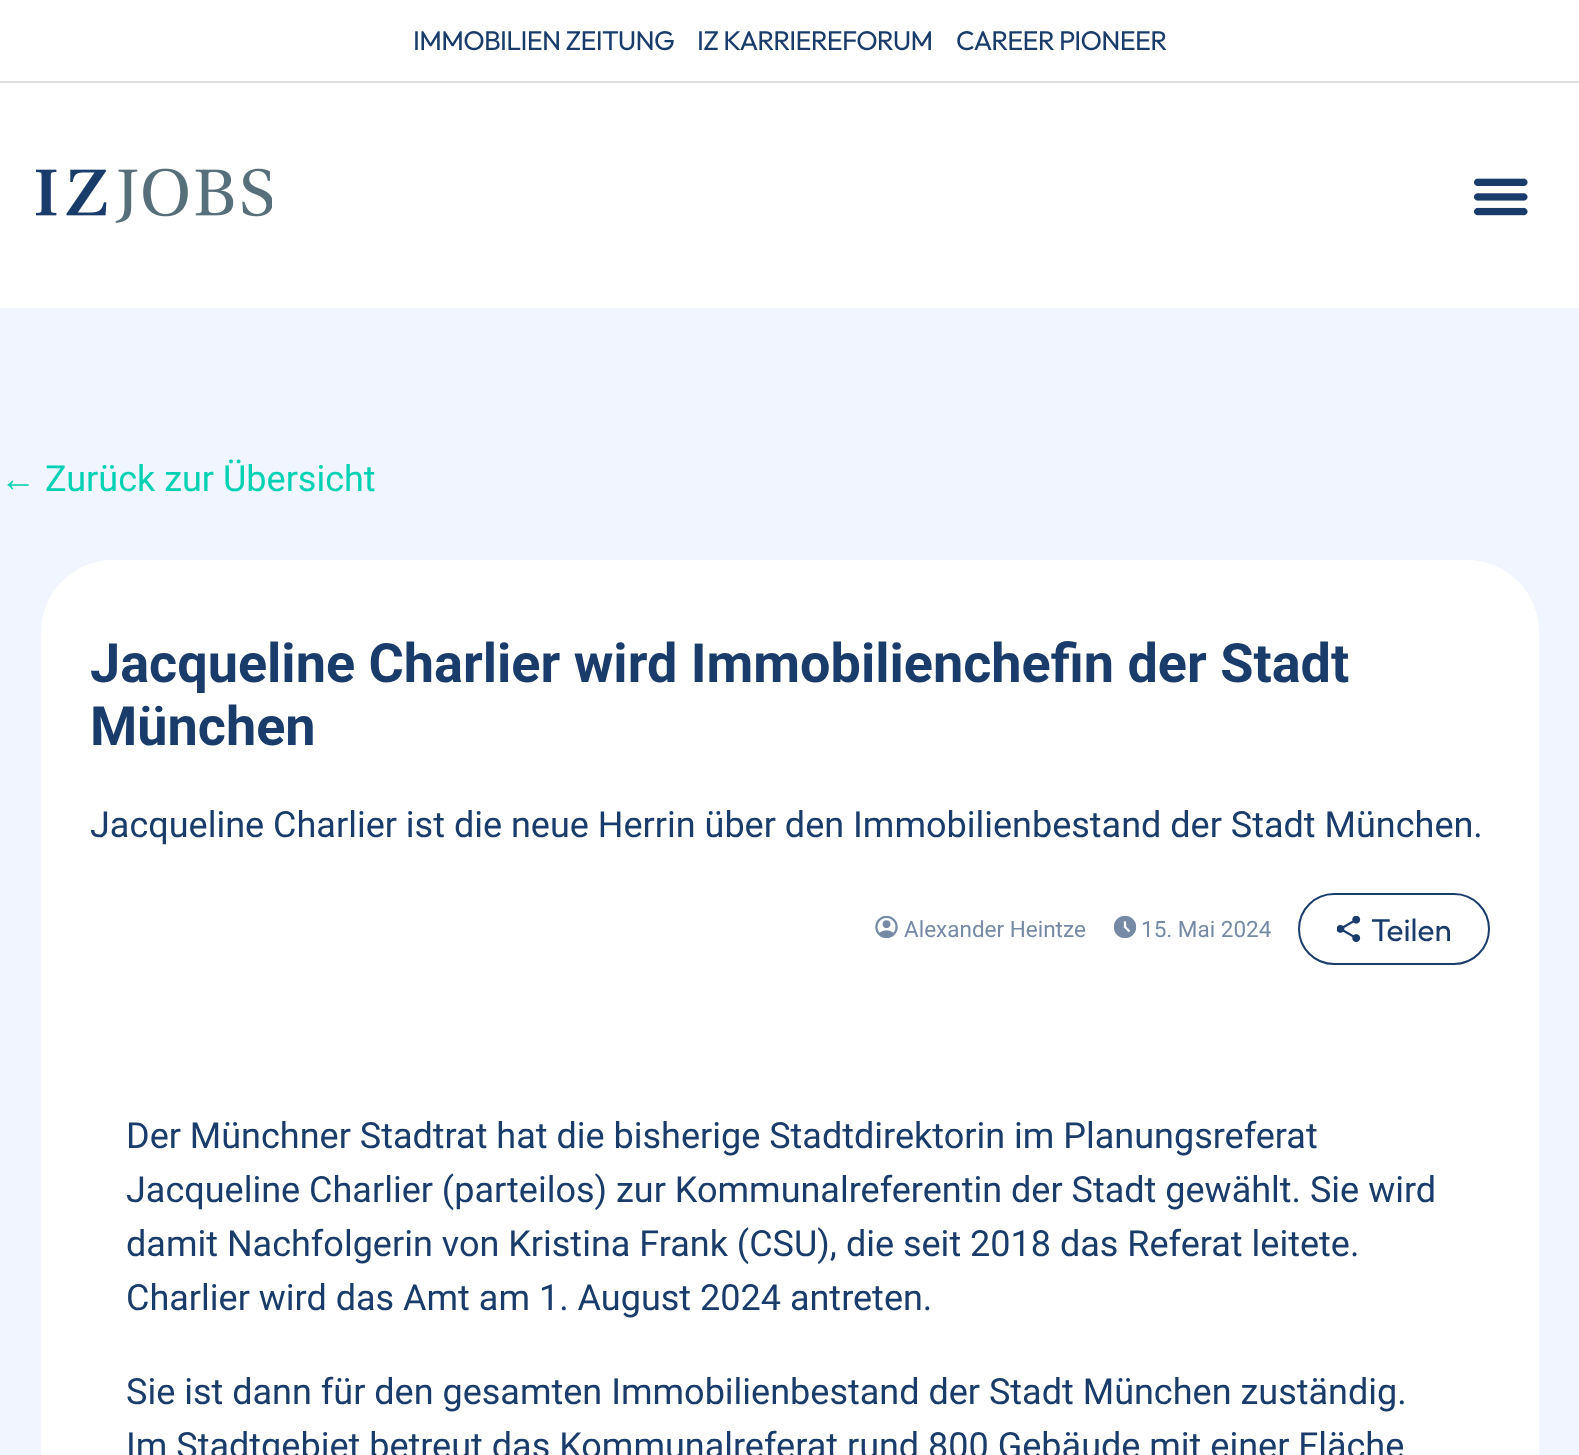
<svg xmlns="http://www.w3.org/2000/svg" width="1579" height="1455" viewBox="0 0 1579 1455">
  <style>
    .t1 { font: 27px Outfit; letter-spacing: -0.7px; fill: #1a3c6b; }
    .t2 { font: 36px Liberation Sans; fill: #00d1b4; }
    .t3 { font: 36px Roboto; fill: #00d1b4; }
    .t4 { font: bold 54px Roboto; fill: #1a3c6b; }
    .t5 { font: 36px Roboto; fill: #1a3c6b; }
    .t6 { font: 22.5px Roboto; fill: #768aa6; }
    .t7 { font: 31.5px Outfit; fill: #1a3c6b; }
  </style>
  <rect width="100%" height="100%" fill="#fff"/>
  <rect x="0" y="81" width="1579" height="2" fill="#dfdfdf"/>
  <text x="413" y="50" class="t1">IMMOBILIEN ZEITUNG</text>
  <text x="697" y="50" class="t1">IZ KARRIEREFORUM</text>
  <text x="956" y="50" class="t1">CAREER PIONEER</text>
  <image x="36" y="168" width="236" height="55" href="images/1.png"/>
  <image x="1474" y="178" width="54" height="38" href="images/2.png"/>
  <rect x="0" y="308" width="1579" height="1147" fill="#f0f5ff"/>
  <text x="0" y="491" class="t2">←</text>
  <text x="45" y="491" class="t3">Zurück zur Übersicht</text>
  <rect x="41" y="560" width="1498" height="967" rx="72" fill="#fff"/>
  <text x="90" y="682" class="t4">Jacqueline Charlier wird Immobilienchefin der Stadt</text>
  <text x="90" y="745" class="t4">München</text>
  <text x="90" y="837" class="t5">Jacqueline Charlier ist die neue Herrin über den Immobilienbestand der Stadt München.</text>
  <image x="875" y="916" width="23" height="22" href="images/3.png"/>
  <text x="904" y="937" class="t6">Alexander Heintze</text>
  <image x="1114" y="916" width="22" height="22" href="images/4.png"/>
  <text x="1141" y="937" class="t6">15. Mai 2024</text>
  <rect x="1299" y="894" width="190" height="70" rx="35" fill="none" stroke="#1a3c6b" stroke-width="2"/>
  <image x="1337" y="916" width="24" height="26" href="images/5.png"/>
  <text x="1371" y="941" class="t7">Teilen</text>
  <text x="126" y="1148" class="t5">Der Münchner Stadtrat hat die bisherige Stadtdirektorin im Planungsreferat</text>
  <text x="126" y="1202" class="t5">Jacqueline Charlier (parteilos) zur Kommunalreferentin der Stadt gewählt. Sie wird</text>
  <text x="126" y="1256" class="t5">damit Nachfolgerin von Kristina Frank (CSU), die seit 2018 das Referat leitete.</text>
  <text x="126" y="1310" class="t5">Charlier wird das Amt am 1. August 2024 antreten.</text>
  <text x="126" y="1404" class="t5">Sie ist dann für den gesamten Immobilienbestand der Stadt München zuständig.</text>
  <text x="126" y="1458" class="t5">Im Stadtgebiet betreut das Kommunalreferat rund 800 Gebäude mit einer Fläche</text>
</svg>
